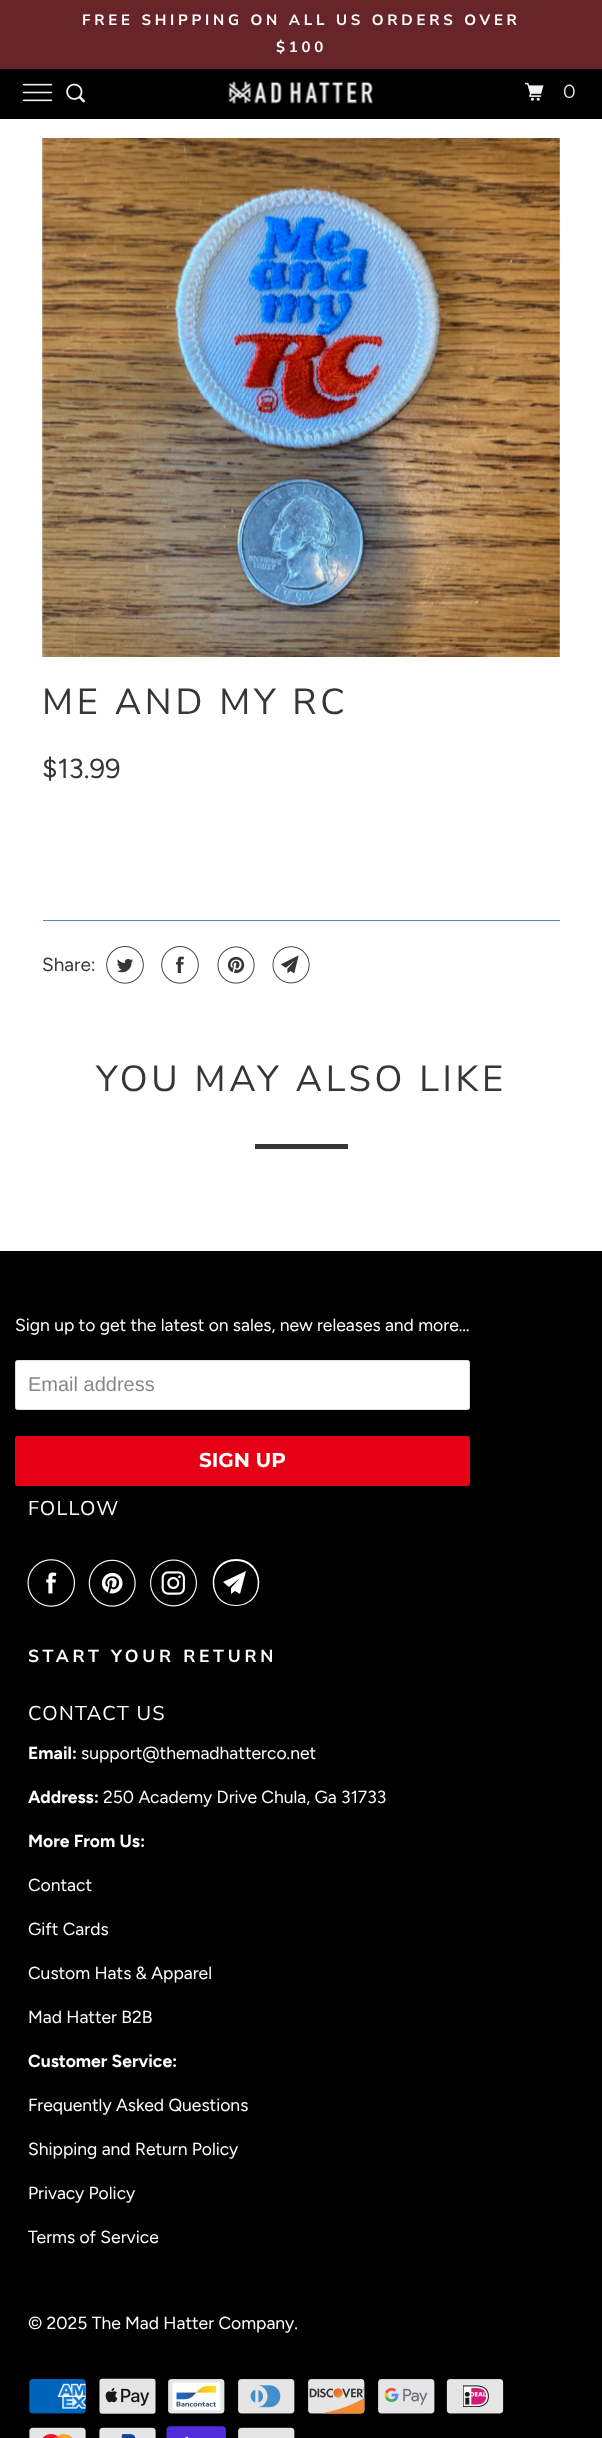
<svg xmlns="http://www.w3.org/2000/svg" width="602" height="2438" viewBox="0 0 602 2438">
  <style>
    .t1 { font: bold 15px Nunito Sans; letter-spacing: 3.75px; fill: #fff; }
    .t2 { font: 19px Montserrat; fill: #f2f2f2; }
    .t3 { font: 36.25px Nunito Sans; letter-spacing: 3.75px; fill: #363636; }
    .t4 { font: 27.5px Figtree; fill: #363636; }
    .t5 { font: 19px Figtree; fill: #363636; }
    .t6 { font: 17.5px Figtree; fill: #fff; }
    .t7 { font: 20px Liberation Sans; fill: #888; }
    .t8 { font: bold 20px Montserrat; fill: #fff; }
    .t9 { font: 20px Nunito Sans; letter-spacing: 1.25px; fill: #fff; }
    .t10 { font: bold 17.5px Nunito Sans; letter-spacing: 3.75px; fill: #fff; }
    .t11 { font: bold 17.5px Figtree; fill: #fff; }
  </style>
  <rect width="100%" height="100%" fill="#000"/>
  <rect x="0" y="0" width="602" height="69" fill="#67252a"/>
  <text x="82" y="25" class="t1">FREE SHIPPING ON ALL US ORDERS OVER</text>
  <text x="276" y="52" class="t1">$100</text>
  <image x="22" y="83" width="31" height="19" href="images/1.png"/>
  <image x="66" y="83" width="19" height="20" href="images/2.png"/>
  <image x="228" y="81" width="145" height="23" href="images/3.png"/>
  <image x="525" y="82" width="19" height="19" href="images/4.png"/>
  <text x="563" y="98" class="t2">0</text>
  <rect x="0" y="119" width="602" height="1132" fill="#fff"/>
  <image x="42" y="138" width="518" height="519" href="images/5.png"/>
  <text x="42" y="714" class="t3">ME AND MY RC</text>
  <text x="42" y="778" class="t4">$13.99</text>
  <rect x="43" y="920" width="517" height="1" fill="#5888aa"/>
  <text x="42" y="971" class="t5">Share:</text>
  <image x="106" y="946" width="38" height="38" href="images/6.png"/>
  <image x="161" y="946" width="38" height="38" href="images/7.png"/>
  <image x="217" y="946" width="38" height="38" href="images/8.png"/>
  <image x="272" y="946" width="38" height="38" href="images/9.png"/>
  <text x="96" y="1091" class="t3">YOU MAY ALSO LIKE</text>
  <rect x="255" y="1144" width="93" height="5" fill="#363636"/>
  <text x="15" y="1331" class="t6">Sign up to get the latest on sales, new releases and more…</text>
  <rect x="15.5" y="1360.5" width="454" height="49" rx="2" fill="#fff" stroke="#dfdfdf"/>
  <text x="28" y="1391" class="t7">Email address</text>
  <rect x="15" y="1436" width="455" height="50" rx="2.5" fill="#e50015"/>
  <text x="199" y="1467" class="t8">SIGN UP</text>
  <text x="28" y="1515" class="t9">FOLLOW</text>
  <image x="27" y="1559" width="48" height="48" href="images/10.png"/>
  <image x="88" y="1559" width="48" height="48" href="images/11.png"/>
  <image x="150" y="1559" width="47" height="48" href="images/12.png"/>
  <path d="M240 1594L235 1591L231 1594V1588L240 1578L229 1587L223 1582L246 1571ZM236 1561C207 1561 207 1605 236 1605C265 1605 265 1561 236 1561ZM236 1606C205 1606 205 1559 236 1559C267 1559 267 1606 236 1606Z" fill="#fff"/>
  <text x="28" y="1662" class="t10">START YOUR RETURN</text>
  <text x="28" y="1720" class="t9">CONTACT US</text>
  <text x="28" y="1759" class="t11">Email:</text>
  <text x="81" y="1759" class="t6">support@themadhatterco.net</text>
  <text x="28" y="1803" class="t11">Address:</text>
  <text x="103" y="1803" class="t6">250 Academy Drive Chula, Ga 31733</text>
  <text x="28" y="1847" class="t11">More From Us:</text>
  <text x="28" y="1891" class="t6">Contact</text>
  <text x="28" y="1935" class="t6">Gift Cards</text>
  <text x="28" y="1979" class="t6">Custom Hats &amp; Apparel</text>
  <text x="28" y="2023" class="t6">Mad Hatter B2B</text>
  <text x="28" y="2067" class="t11">Customer Service:</text>
  <text x="28" y="2111" class="t6">Frequently Asked Questions</text>
  <text x="28" y="2155" class="t6">Shipping and Return Policy</text>
  <text x="28" y="2199" class="t6">Privacy Policy</text>
  <text x="28" y="2243" class="t6">Terms of Service</text>
  <text x="28" y="2329" class="t6">© 2025 The Mad Hatter Company.</text>
  <image x="29" y="2379" width="57" height="35" href="images/13.png"/>
  <image x="99" y="2378" width="57" height="36" href="images/14.png"/>
  <image x="168" y="2379" width="57" height="35" href="images/15.png"/>
  <image x="238" y="2379" width="57" height="35" href="images/16.png"/>
  <image x="308" y="2379" width="57" height="35" href="images/17.png"/>
  <image x="378" y="2379" width="57" height="35" href="images/18.png"/>
  <image x="446" y="2379" width="58" height="35" href="images/19.png"/>
  <image x="29" y="2427" width="57" height="11" href="images/20.png"/>
  <image x="99" y="2427" width="57" height="11" href="images/21.png"/>
  <image x="166" y="2426" width="60" height="12" href="images/22.png"/>
  <image x="238" y="2427" width="57" height="11" href="images/23.png"/>
</svg>
